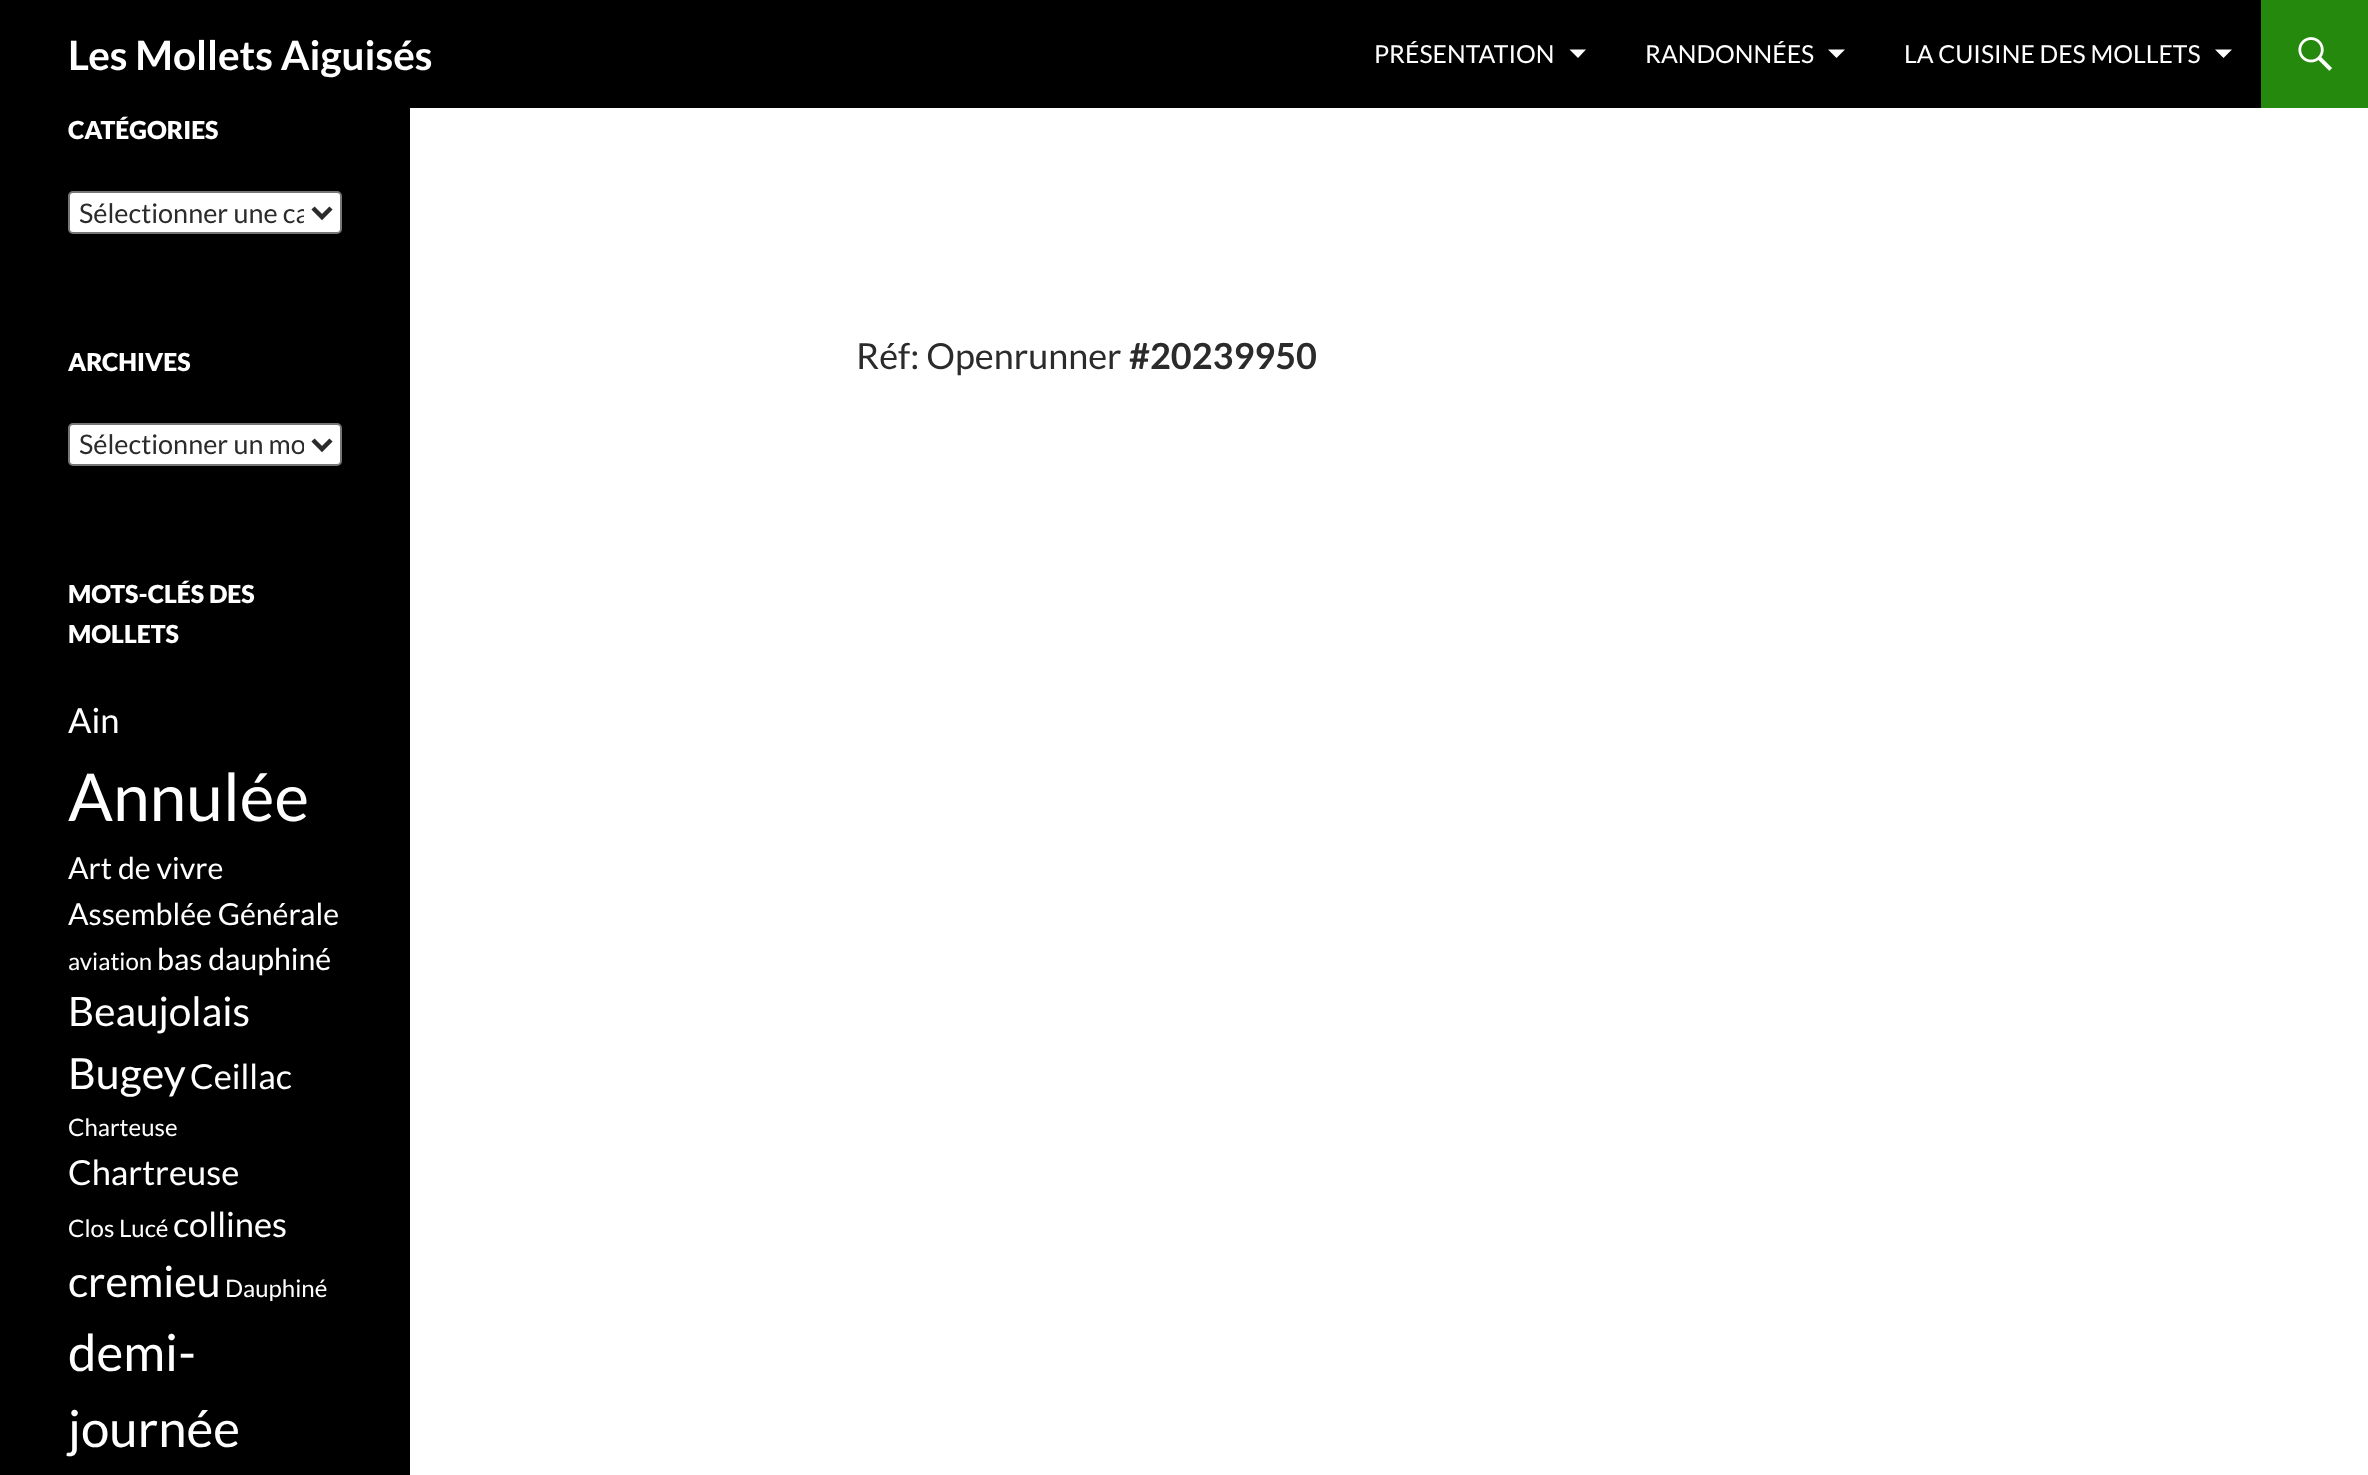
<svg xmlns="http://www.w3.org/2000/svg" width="2368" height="1475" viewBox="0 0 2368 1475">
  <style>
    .t1 { font: bold 40.5px Lato; fill: #fff; }
    .t2 { font: 24.75px Lato; fill: #fff; }
    .t3 { font: 900 24.75px Lato; fill: #fff; }
    .t4 { font: 27px Lato; fill: #2b2b2b; }
    .t5 { font: 34.5px Lato; fill: #fff; }
    .t6 { font: 66px Lato; fill: #fff; }
    .t7 { font: 30.25px Lato; fill: #fff; }
    .t8 { font: 24px Lato; fill: #fff; }
    .t9 { font: 40.5px Lato; fill: #fff; }
    .t10 { font: 43px Lato; fill: #fff; }
    .t11 { font: 51px Lato; fill: #fff; }
    .t12 { font: 36px Lato; fill: #2b2b2b; }
    .t13 { font: bold 36px Lato; fill: #2b2b2b; }
  </style>
  <defs>
    <clipPath id="clip1"><rect x="79" y="194" width="225" height="38"/></clipPath>
    <clipPath id="clip2"><rect x="79" y="425" width="225" height="39"/></clipPath>
  </defs>
  <rect width="100%" height="100%" fill="#fff"/>
  <rect x="0" y="0" width="2261" height="108" fill="#000"/>
  <text x="68" y="70" class="t1">Les Mollets Aiguisés</text>
  <text x="1374" y="63" class="t2">PRÉSENTATION</text>
  <path d="M1569.5 49.5L1578 58L1586 49.5Z" fill="#fff"/>
  <text x="1645" y="63" class="t2">RANDONNÉES</text>
  <path d="M1828 49.5L1836.5 58L1845 49.5Z" fill="#fff"/>
  <text x="1904" y="63" class="t2">LA CUISINE DES MOLLETS</text>
  <path d="M2215 49.5L2223.5 58L2232 49.5Z" fill="#fff"/>
  <rect x="2261" y="0" width="107" height="108" fill="#24890d"/>
  <image x="2298" y="37" width="34" height="34" href="images/1.png"/>
  <rect x="0" y="108" width="410" height="1367" fill="#000"/>
  <text x="68" y="139" class="t3">CATÉGORIES</text>
  <rect x="69" y="192" width="272" height="41" rx="4" fill="#fff" stroke="#767676" stroke-width="2"/>
  <path d="M313 208L322 217L331 208" fill="none" stroke="#2b2b2b" stroke-width="4.5"/>
  <g clip-path="url(#clip1)">
    <text x="79" y="223" class="t4">Sélectionner une ca</text>
  </g>
  <text x="68" y="371" class="t3">ARCHIVES</text>
  <rect x="69" y="424" width="272" height="41" rx="4" fill="#fff" stroke="#767676" stroke-width="2"/>
  <path d="M313 440L322 449L331 440" fill="none" stroke="#2b2b2b" stroke-width="4.5"/>
  <g clip-path="url(#clip2)">
    <text x="79" y="454" class="t4">Sélectionner un mo</text>
  </g>
  <text x="68" y="603" class="t3">MOTS-CLÉS DES</text>
  <text x="68" y="643" class="t3">MOLLETS</text>
  <text x="68" y="733" class="t5">Ain</text>
  <text x="68" y="821" class="t6">Annulée</text>
  <text x="68" y="879" class="t7">Art de vivre</text>
  <text x="68" y="925" class="t7">Assemblée Générale</text>
  <text x="68" y="970" class="t8">aviation</text>
  <text x="157" y="970" class="t7">bas dauphiné</text>
  <text x="68" y="1026" class="t9">Beaujolais</text>
  <text x="68" y="1089" class="t10">Bugey</text>
  <text x="190" y="1089" class="t5">Ceillac</text>
  <text x="68" y="1136" class="t8">Charteuse</text>
  <text x="68" y="1185" class="t5">Chartreuse</text>
  <text x="68" y="1237" class="t8">Clos Lucé</text>
  <text x="173" y="1237" class="t5">collines</text>
  <text x="68" y="1297" class="t10">cremieu</text>
  <text x="225" y="1297" class="t8">Dauphiné</text>
  <text x="68" y="1371" class="t11">demi-</text>
  <text x="68" y="1447" class="t11">journée</text>
  <text x="856" y="369" class="t12">Réf: Openrunner</text>
  <text x="1129" y="369" class="t13">#20239950</text>
</svg>
